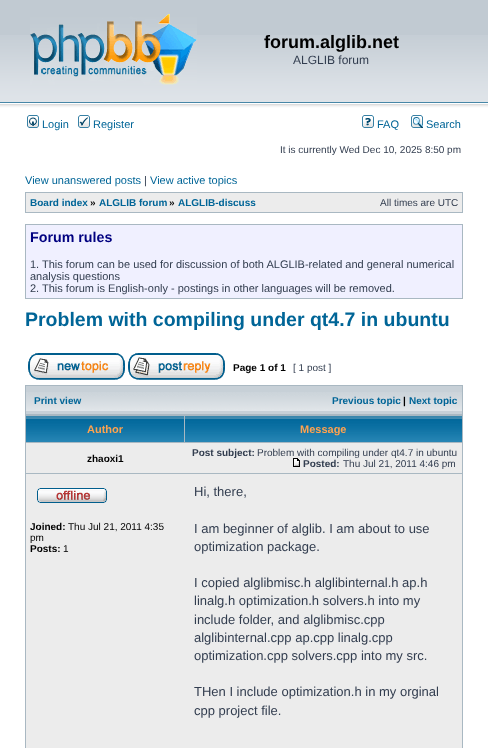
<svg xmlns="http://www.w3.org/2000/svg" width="488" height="748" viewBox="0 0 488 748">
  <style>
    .t1 { font: bold 18px Liberation Sans; fill: #000; }
    .t2 { font: 12px Liberation Sans; fill: #323d4f; }
    .t3 { font: 11px Liberation Sans; fill: #006597; }
    .t4 { font: 10px Liberation Sans; fill: #323d4f; }
    .t5 { font: 11px Liberation Sans; fill: #323d4f; }
    .t6 { font: bold 10px Liberation Sans; fill: #006597; }
    .t7 { font: bold 10px Liberation Sans; fill: #000; }
    .t8 { font: bold 14.25px Liberation Sans; fill: #000080; }
    .t9 { font: bold 19.5px Liberation Sans; fill: #006597; }
    .t10 { font: bold 11px Liberation Sans; fill: #ffa34f; }
    .t11 { font: bold 10px Liberation Sans; fill: #323d4f; }
    .t12 { font: 10px Liberation Sans; fill: #000; }
    .t13 { font: 13px Liberation Sans; fill: #323d4f; }
  </style>
  <rect width="100%" height="100%" fill="#fff"/>
  <rect x="0" y="0" width="488" height="35" fill="#c1cad2"/>
  <image x="0" y="35" width="488" height="78" href="images/1.png"/>
  <image x="30" y="14" width="167" height="71" href="images/2.png"/>
  <text x="264" y="48" class="t1">forum.alglib.net</text>
  <text x="293" y="64" class="t2">ALGLIB forum</text>
  <image x="27" y="115" width="12" height="13" href="images/3.png"/>
  <text x="42" y="128" class="t3">Login</text>
  <image x="78" y="115" width="12" height="13" href="images/4.png"/>
  <text x="93" y="128" class="t3">Register</text>
  <image x="362" y="115" width="12" height="13" href="images/5.png"/>
  <text x="377" y="128" class="t3">FAQ</text>
  <image x="411" y="115" width="12" height="13" href="images/6.png"/>
  <text x="426" y="128" class="t3">Search</text>
  <text x="280" y="153" class="t4">It is currently Wed Dec 10, 2025 8:50 pm</text>
  <text x="25" y="184" class="t3">View unanswered posts</text>
  <text x="144" y="184" class="t5">|</text>
  <text x="150" y="184" class="t3">View active topics</text>
  <rect x="25" y="192" width="438" height="21" fill="#a9b8c2"/>
  <rect x="26" y="193" width="436" height="19" fill="#ececec"/>
  <text x="30" y="206" class="t6">Board index</text>
  <text x="90" y="206" class="t7">»</text>
  <text x="99" y="206" class="t6">ALGLIB forum</text>
  <text x="169" y="206" class="t7">»</text>
  <text x="178" y="206" class="t6">ALGLIB-discuss</text>
  <text x="380" y="206" class="t4">All times are UTC</text>
  <rect x="25.5" y="224.5" width="437" height="74" fill="#f0f0ff" stroke="#a9b8c2"/>
  <text x="30" y="242" class="t8">Forum rules</text>
  <text x="30" y="268" class="t5">1. This forum can be used for discussion of both ALGLIB-related and general numerical</text>
  <text x="30" y="280" class="t5">analysis questions</text>
  <text x="30" y="292" class="t5">2. This forum is English-only - postings in other languages will be removed.</text>
  <text x="25" y="326" class="t9">Problem with compiling under qt4.7 in ubuntu</text>
  <image x="28" y="353" width="97" height="27" href="images/7.png"/>
  <image x="128" y="353" width="97" height="27" href="images/8.png"/>
  <text x="233" y="371" class="t7">Page 1 of 1</text>
  <text x="293" y="371" class="t4">[ 1 post ]</text>
  <rect x="25" y="385" width="438" height="363" fill="#a9b8c2"/>
  <rect x="26" y="386" width="436" height="28" fill="#c7d0d7"/>
  <image x="26" y="392" width="436" height="19" href="images/9.png"/>
  <text x="34" y="404" class="t6">Print view</text>
  <text x="332" y="404" class="t6">Previous topic</text>
  <text x="403" y="404" class="t7">|</text>
  <text x="409" y="404" class="t6">Next topic</text>
  <image x="26" y="416" width="158" height="26" href="images/10.png"/>
  <text x="87" y="433" class="t10">Author</text>
  <image x="185" y="416" width="277" height="26" href="images/11.png"/>
  <text x="300" y="433" class="t10">Message</text>
  <rect x="26" y="443" width="436" height="30" fill="#ececec"/>
  <text x="87" y="462" class="t7">zhaoxi1</text>
  <text x="192" y="456" class="t11">Post subject:</text>
  <text x="257" y="456" class="t4">Problem with compiling under qt4.7 in ubuntu</text>
  <image x="293" y="458" width="7" height="9" href="images/12.png"/>
  <text x="303" y="467" class="t11">Posted:</text>
  <text x="343" y="467" class="t4">Thu Jul 21, 2011 4:46 pm</text>
  <rect x="26" y="474" width="436" height="274" fill="#ececec"/>
  <image x="37" y="488" width="70" height="15" href="images/13.png"/>
  <text x="30" y="530" class="t7">Joined:</text>
  <text x="68" y="530" class="t12">Thu Jul 21, 2011 4:35</text>
  <text x="30" y="541" class="t12">pm</text>
  <text x="30" y="552" class="t7">Posts:</text>
  <text x="63" y="552" class="t12">1</text>
  <text x="194" y="496" class="t13">Hi, there,</text>
  <text x="194" y="533" class="t13">I am beginner of alglib. I am about to use</text>
  <text x="194" y="551" class="t13">optimization package.</text>
  <text x="194" y="587" class="t13">I copied alglibmisc.h alglibinternal.h ap.h</text>
  <text x="194" y="605" class="t13">linalg.h optimization.h solvers.h into my</text>
  <text x="194" y="624" class="t13">include folder, and alglibmisc.cpp</text>
  <text x="194" y="642" class="t13">alglibinternal.cpp ap.cpp linalg.cpp</text>
  <text x="194" y="660" class="t13">optimization.cpp solvers.cpp into my src.</text>
  <text x="194" y="696" class="t13">THen I include optimization.h in my orginal</text>
  <text x="194" y="715" class="t13">cpp project file.</text>
</svg>
